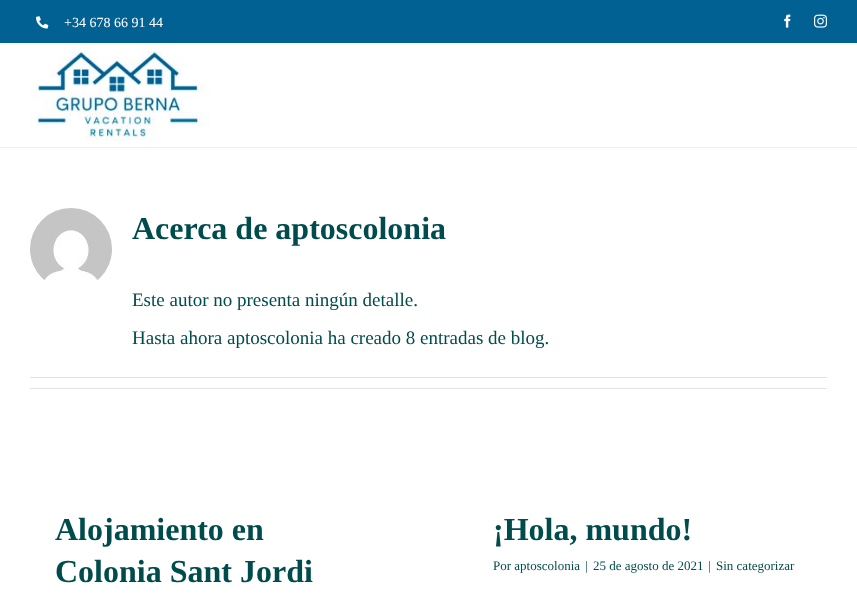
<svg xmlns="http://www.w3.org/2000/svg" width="857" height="606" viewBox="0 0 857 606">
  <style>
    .t1 { font: 14px Liberation Serif; fill: #fff; }
    .t2 { font: bold 32px Liberation Serif; fill: #004c4c; }
    .t3 { font: 19px Liberation Serif; fill: #004c4c; }
    .t4 { font: 13px Liberation Serif; fill: #004c4c; }
  </style>
  <rect width="100%" height="100%" fill="#fff"/>
  <rect x="0" y="0" width="857" height="43" fill="#016193"/>
  <image x="36" y="16" width="13" height="13" href="images/1.png"/>
  <text x="64" y="27" class="t1">+34 678 66 91 44</text>
  <image x="784" y="14" width="7" height="14" href="images/2.png"/>
  <image x="814" y="14" width="13" height="14" href="images/3.png"/>
  <rect x="0" y="147" width="857" height="1" fill="#e8efef"/>
  <image x="30" y="43" width="180" height="98" href="images/4.png"/>
  <image x="30" y="208" width="82" height="72" href="images/5.png"/>
  <text x="132" y="239" class="t2">Acerca de aptoscolonia</text>
  <text x="132" y="306" class="t3">Este autor no presenta ningún detalle.</text>
  <text x="132" y="344" class="t3">Hasta ahora aptoscolonia ha creado 8 entradas de blog.</text>
  <rect x="30" y="377" width="797" height="1" fill="#e2e2e2"/>
  <rect x="30" y="388" width="797" height="1" fill="#e2e2e2"/>
  <text x="55" y="540" class="t2">Alojamiento en</text>
  <text x="55" y="582" class="t2">Colonia Sant Jordi</text>
  <text x="493" y="540" class="t2">¡Hola, mundo!</text>
  <text x="493" y="570" class="t4">Por aptoscolonia</text>
  <text x="585" y="570" class="t4">|</text>
  <text x="593" y="570" class="t4">25 de agosto de 2021</text>
  <text x="708" y="570" class="t4">|</text>
  <text x="716" y="570" class="t4">Sin categorizar</text>
</svg>
